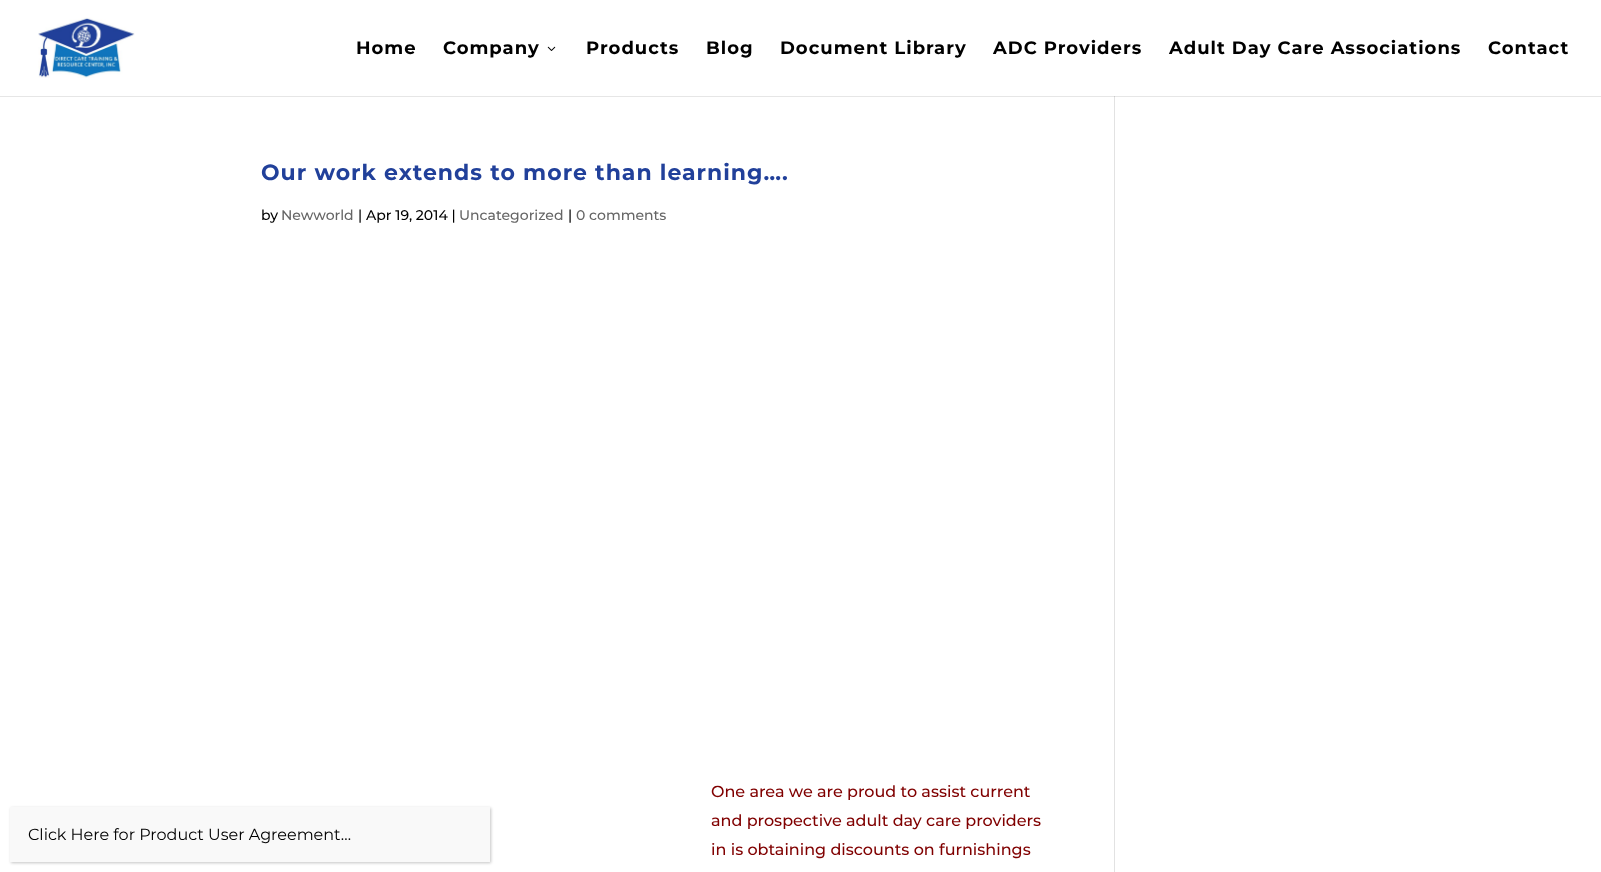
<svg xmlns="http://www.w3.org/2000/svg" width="1601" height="872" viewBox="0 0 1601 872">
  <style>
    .t1 { font: 16px Montserrat; fill: #000; }
    .t2 { font: bold 18px Montserrat; letter-spacing: 1px; fill: #000; }
    .t3 { font: bold 22px Montserrat; letter-spacing: 1px; fill: #21409a; }
    .t4 { font: 500 14px Montserrat; fill: #000; }
    .t5 { font: 500 14px Montserrat; fill: #666; }
    .t6 { font: 500 16px Montserrat; fill: #800000; }
  </style>
  <rect width="100%" height="100%" fill="#fff"/>
  <rect x="0" y="96" width="1601" height="1" fill="#e6e6e6"/>
  <rect x="11" y="808" width="480" height="55" fill="#0202023b" filter="blur(1.5px)"/>
  <rect x="10" y="807" width="480" height="55" fill="#f9f9f9"/>
  <text x="28" y="840" class="t1">Click Here for Product User Agreement…</text>
  <image x="38" y="17" width="97" height="61" href="images/1.png"/>
  <text x="356" y="54" class="t2">Home</text>
  <text x="443" y="54" class="t2">Company</text>
  <image x="547" y="46" width="9" height="5" href="images/2.png"/>
  <text x="586" y="54" class="t2">Products</text>
  <text x="706" y="54" class="t2">Blog</text>
  <text x="780" y="54" class="t2">Document Library</text>
  <text x="993" y="54" class="t2">ADC Providers</text>
  <text x="1169" y="54" class="t2">Adult Day Care Associations</text>
  <text x="1488" y="54" class="t2">Contact</text>
  <text x="261" y="180" class="t3">Our work extends to more than learning….</text>
  <text x="261" y="220" class="t4">by</text>
  <text x="281" y="220" class="t5">Newworld</text>
  <text x="358" y="220" class="t4">| Apr 19, 2014 |</text>
  <text x="459" y="220" class="t5">Uncategorized</text>
  <text x="568" y="220" class="t4">|</text>
  <text x="576" y="220" class="t5">0 comments</text>
  <text x="711" y="797" class="t6">One area we are proud to assist current</text>
  <text x="711" y="826" class="t6">and prospective adult day care providers</text>
  <text x="711" y="855" class="t6">in is obtaining discounts on furnishings</text>
  <rect x="1114" y="96" width="1" height="776" fill="#e2e2e2"/>
  <rect x="1114" y="96" width="1" height="1" fill="#cbcbcb"/>
</svg>
